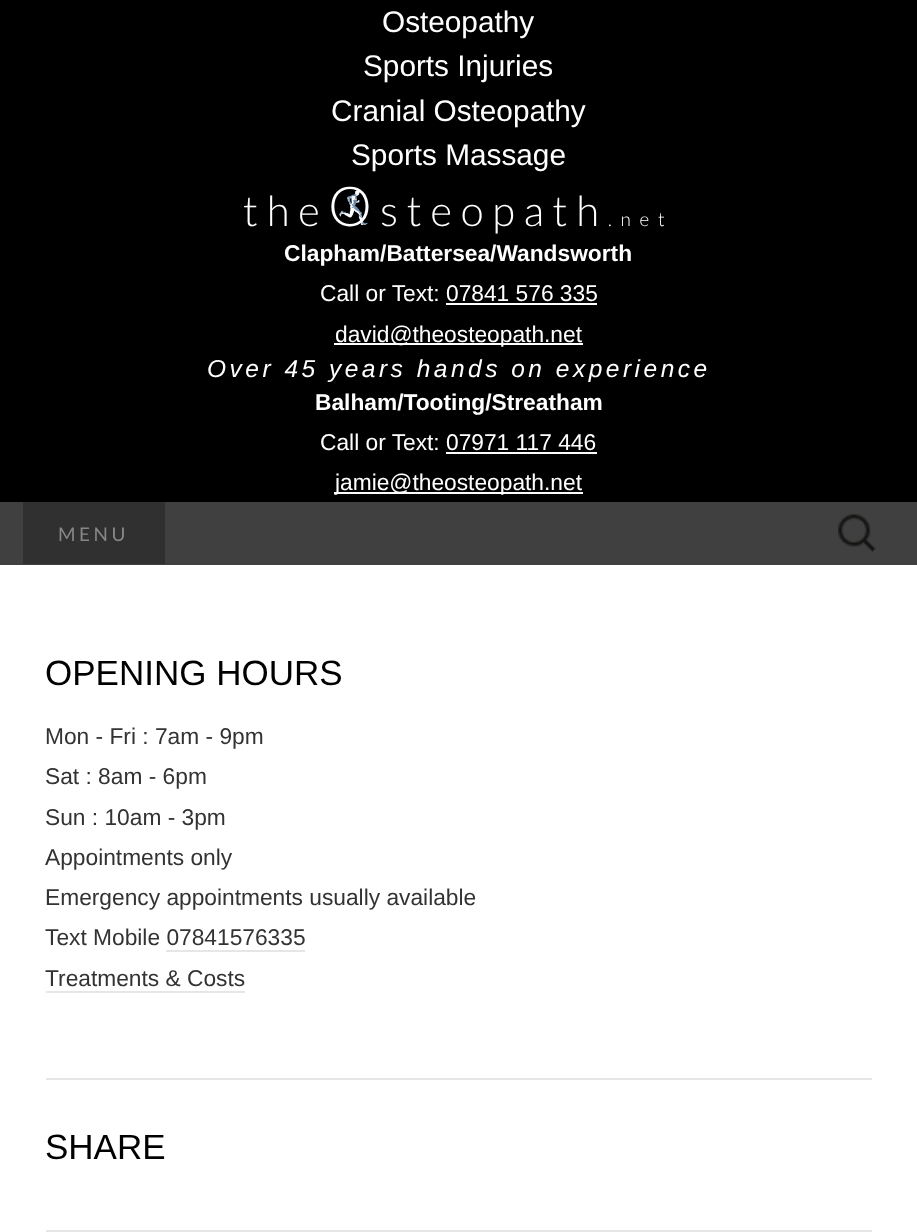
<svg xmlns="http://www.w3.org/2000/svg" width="917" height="1232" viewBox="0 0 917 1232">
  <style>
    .t1 { font: 29.75px Liberation Sans; fill: #fff; }
    .t2 { font: 300 55px Lato; letter-spacing: 8.75px; fill: #fff; }
    .t3 { font: 300 42px Lato; letter-spacing: 8.75px; fill: #fff; }
    .t4 { font: 300 19px Lato; letter-spacing: 8.75px; fill: #fff; }
    .t5 { font: bold 22.75px Liberation Sans; fill: #fff; }
    .t6 { font: 22.75px Liberation Sans; fill: #fff; }
    .t7 { font: italic 24.5px Liberation Sans; letter-spacing: 3.5px; fill: #fff; }
    .t8 { font: 19px Lato; letter-spacing: 3.5px; fill: #888; }
    .t9 { font: 35px Liberation Sans; fill: #000; }
    .t10 { font: 22.75px Liberation Sans; fill: #333; }
  </style>
  <rect width="100%" height="100%" fill="#fff"/>
  <rect x="0" y="0" width="917" height="502" fill="#000"/>
  <text x="382" y="32" class="t1">Osteopathy</text>
  <text x="363" y="76" class="t1">Sports Injuries</text>
  <text x="331" y="121" class="t1">Cranial Osteopathy</text>
  <text x="351" y="165" class="t1">Sports Massage</text>
  <image x="339" y="190" width="29" height="36" href="images/1.png"/>
  <text x="328" y="226" class="t2">O</text>
  <text x="243" y="226" class="t3">the</text>
  <text x="380" y="226" class="t3">steopath</text>
  <text x="608" y="226" class="t4">.net</text>
  <text x="284" y="261" class="t5">Clapham/Battersea/Wandsworth</text>
  <text x="320" y="301" class="t6">Call or Text: 07841 576 335</text>
  <rect x="446" y="303" width="151" height="2" fill="#fff"/>
  <rect x="334" y="343" width="249" height="2" fill="#fff"/>
  <text x="335" y="342" class="t6">david@theosteopath.net</text>
  <text x="207" y="377" class="t7">Over 45 years hands on experience</text>
  <text x="315" y="410" class="t5">Balham/Tooting/Streatham</text>
  <text x="320" y="450" class="t6">Call or Text: 07971 117 446</text>
  <rect x="446" y="452" width="151" height="2" fill="#fff"/>
  <rect x="334" y="492" width="249" height="2" fill="#fff"/>
  <text x="335" y="490" class="t6">jamie@theosteopath.net</text>
  <rect x="0" y="502" width="917" height="63" fill="#404040"/>
  <rect x="23" y="502" width="142" height="62" fill="#303030"/>
  <text x="58" y="541" class="t8">MENU</text>
  <image x="838" y="514" width="38" height="38" href="images/2.png"/>
  <rect x="46" y="1078" width="826" height="2" fill="#e6e6e6"/>
  <text x="45" y="685" class="t9">OPENING HOURS</text>
  <text x="45" y="744" class="t10">Mon - Fri : 7am - 9pm</text>
  <text x="45" y="784" class="t10">Sat : 8am - 6pm</text>
  <text x="45" y="825" class="t10">Sun : 10am - 3pm</text>
  <text x="45" y="865" class="t10">Appointments only</text>
  <text x="45" y="905" class="t10">Emergency appointments usually available</text>
  <text x="45" y="945" class="t10">Text Mobile 07841576335</text>
  <rect x="166" y="950" width="139" height="2" fill="#e6e6e6"/>
  <text x="45" y="986" class="t10">Treatments &amp; Costs</text>
  <rect x="46" y="991" width="199" height="2" fill="#e6e6e6"/>
  <rect x="46" y="1230" width="826" height="2" fill="#e6e6e6"/>
  <text x="45" y="1159" class="t9">SHARE</text>
</svg>
